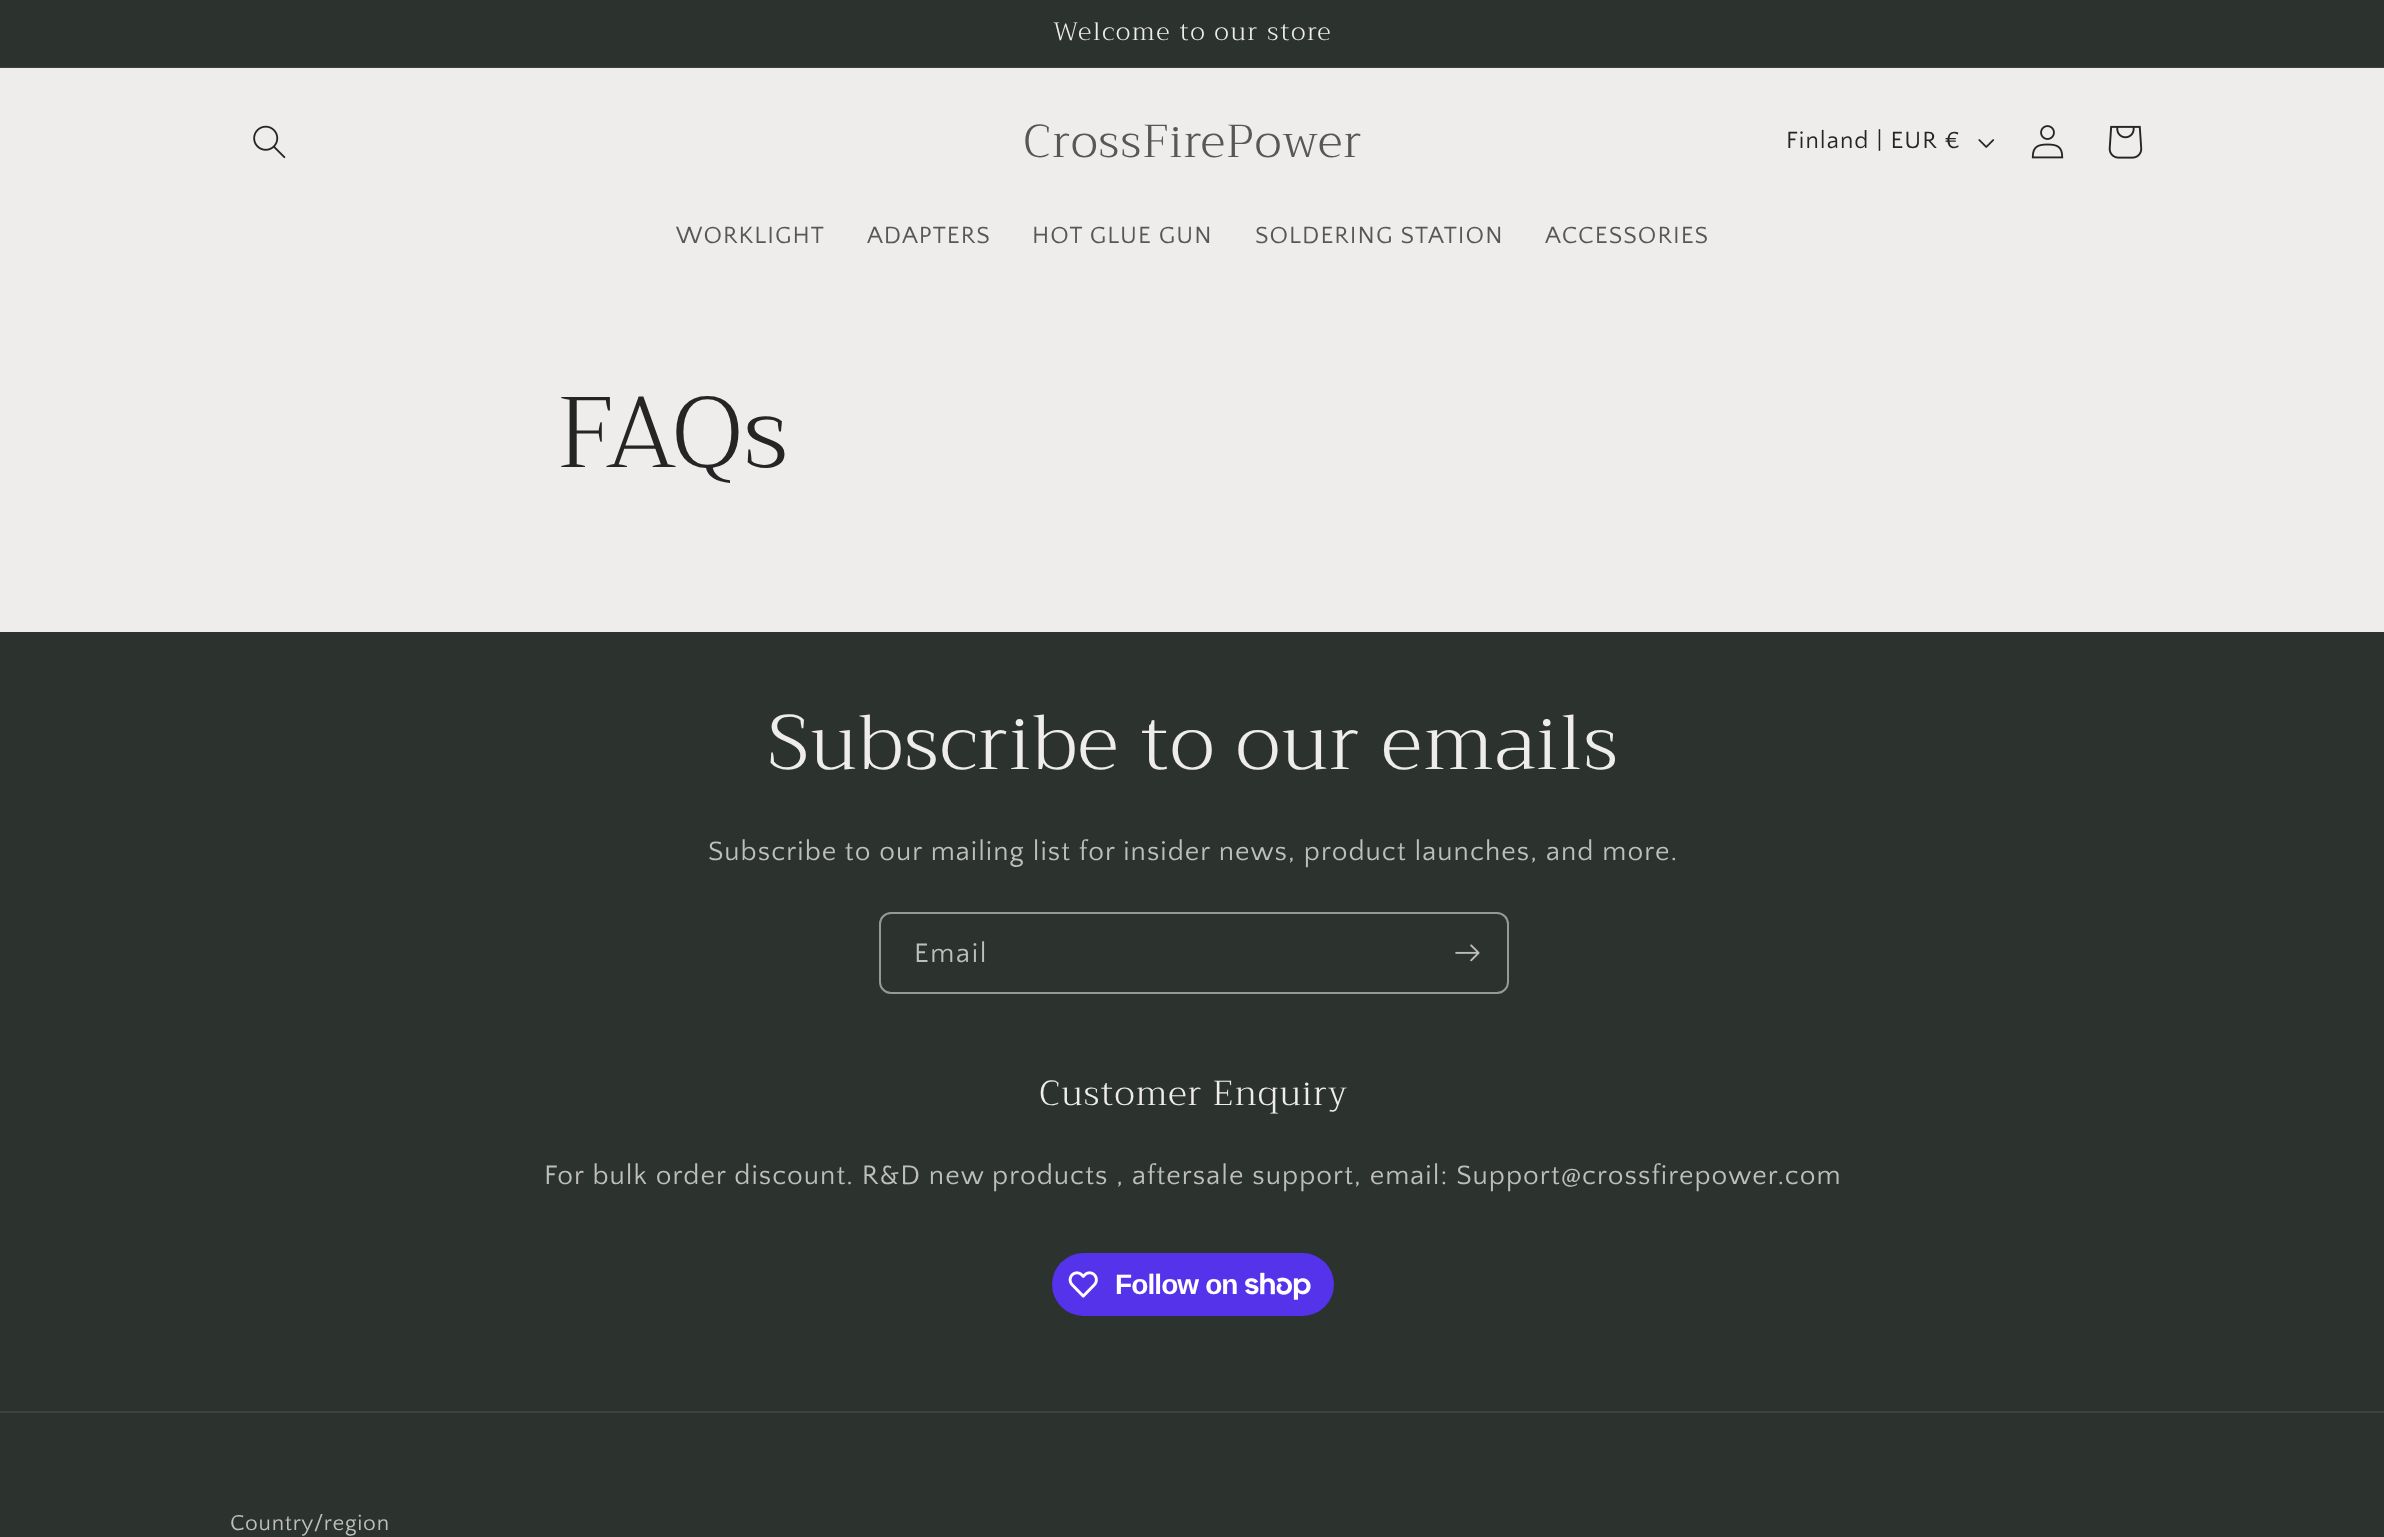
<svg xmlns="http://www.w3.org/2000/svg" width="2384" height="1537" viewBox="0 0 2384 1537">
  <style>
    .t1 { font: 300 25px Trirong; letter-spacing: 1.75px; fill: #efecec; }
    .t2 { font: 300 46.25px Trirong; letter-spacing: 1.2px; fill: #585757; }
    .t3 { font: 24.5px Quattrocento Sans; letter-spacing: 1.05px; fill: #252525; }
    .t4 { font: 24.5px Quattrocento Sans; letter-spacing: 1.05px; fill: #585757; }
    .t5 { font: 300 100px Trirong; letter-spacing: 1.2px; fill: #252525; }
    .t6 { font: 300 77px Trirong; letter-spacing: 1.2px; fill: #efecec; }
    .t7 { font: 28px Quattrocento Sans; letter-spacing: 1.05px; fill: #bebebd; }
    .t8 { font: 28px Quattrocento Sans; letter-spacing: 1.75px; fill: #bebebd; }
    .t9 { font: 300 34.75px Trirong; letter-spacing: 1.2px; fill: #efecec; }
    .t10 { font: bold 28px Liberation Sans; letter-spacing: -0.9px; fill: #fff; }
    .t11 { font: 22.75px Quattrocento Sans; letter-spacing: 0.75px; fill: #bebebd; }
  </style>
  <rect width="100%" height="100%" fill="#efecec"/>
  <rect x="0" y="0" width="2384" height="67" fill="#2c332f"/>
  <rect x="0" y="67" width="2384" height="1" fill="#3c423e"/>
  <text x="1053" y="40" class="t1">Welcome to our store</text>
  <image x="253" y="125" width="33" height="34" href="images/1.png"/>
  <text x="1023" y="157" class="t2">CrossFirePower</text>
  <text x="1786" y="148" class="t3">Finland | EUR €</text>
  <image x="1978" y="139" width="16" height="9" href="images/2.png"/>
  <image x="2031" y="125" width="33" height="34" href="images/3.png"/>
  <image x="2108" y="125" width="35" height="34" href="images/4.png"/>
  <text x="676" y="243" class="t4">WORKLIGHT</text>
  <text x="867" y="243" class="t4">ADAPTERS</text>
  <text x="1032" y="243" class="t4">HOT GLUE GUN</text>
  <text x="1255" y="243" class="t4">SOLDERING STATION</text>
  <text x="1545" y="243" class="t4">ACCESSORIES</text>
  <text x="557" y="467" class="t5">FAQs</text>
  <rect x="0" y="632" width="2384" height="905" fill="#2c332f"/>
  <text x="768" y="769" class="t6">Subscribe to our emails</text>
  <text x="708" y="860" class="t7">Subscribe to our mailing list for insider news, product launches, and more.</text>
  <rect x="880" y="913" width="628" height="80" rx="11" fill="none" stroke="#979997" stroke-width="2"/>
  <text x="914" y="962" class="t8">Email</text>
  <image x="1455" y="944" width="25" height="18" href="images/5.png"/>
  <text x="1039" y="1105" class="t9">Customer Enquiry</text>
  <text x="544" y="1184" class="t7">For bulk order discount. R&amp;D new products , aftersale support, email: Support@crossfirepower.com</text>
  <rect x="1052" y="1253" width="282" height="63" rx="31.5" fill="#5433eb"/>
  <image x="1068" y="1271" width="30" height="27" href="images/6.png"/>
  <text x="1115" y="1294" class="t10">Follow on</text>
  <image x="1245" y="1272" width="66" height="28" href="images/7.png"/>
  <rect x="0" y="1411" width="2384" height="2" fill="#3c423e"/>
  <text x="230" y="1530" class="t11">Country/region</text>
</svg>
